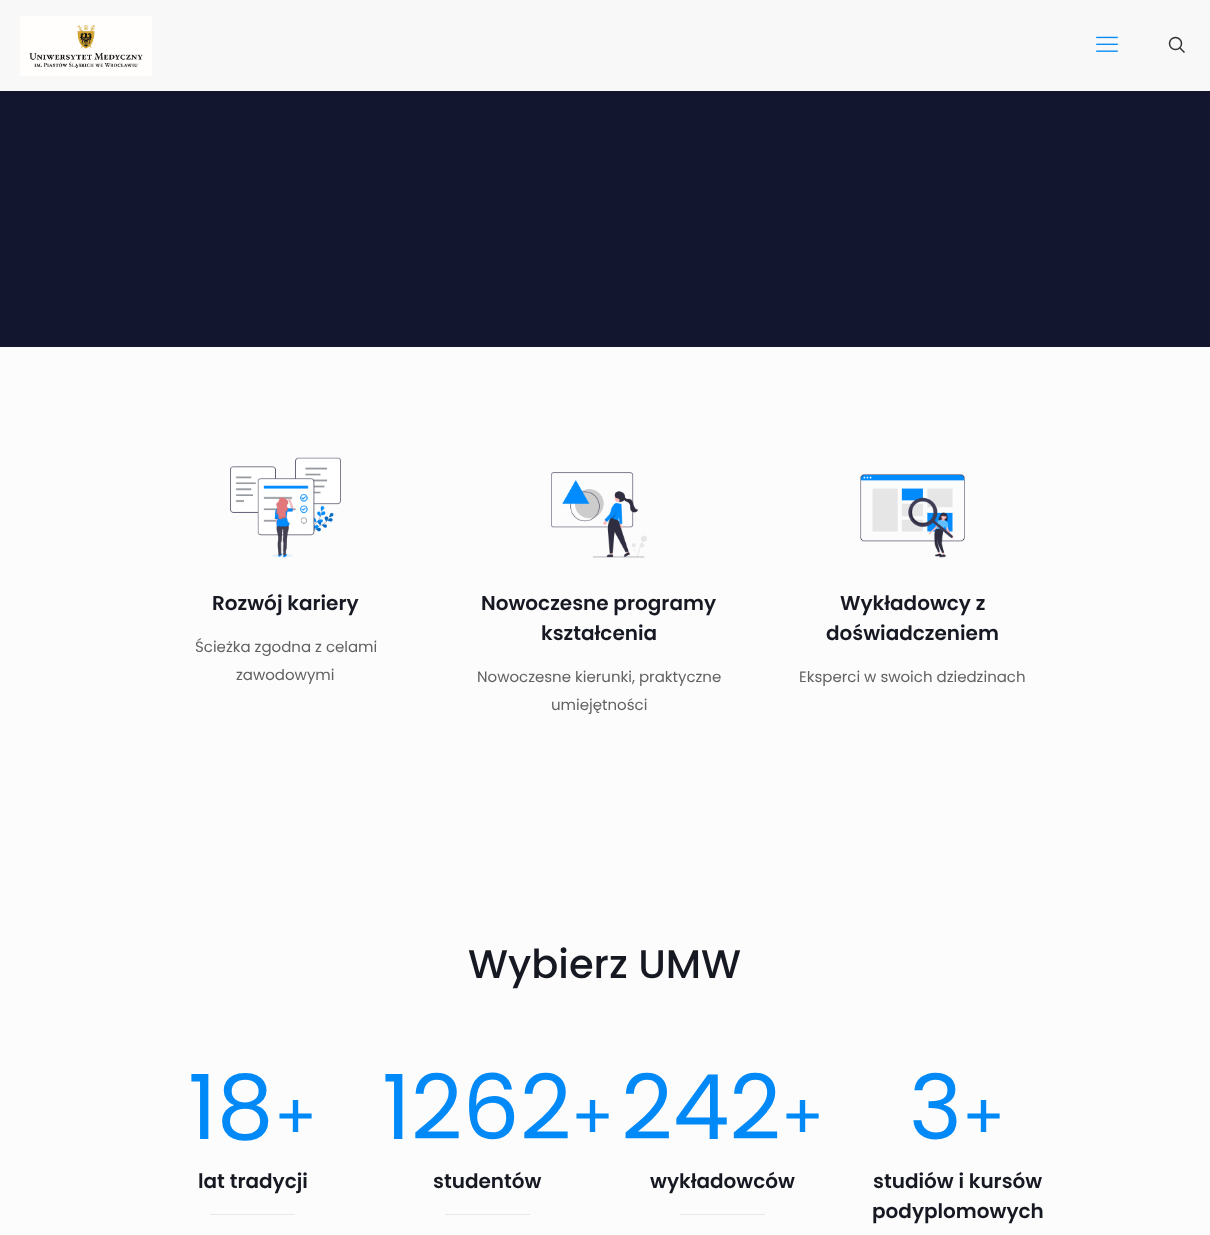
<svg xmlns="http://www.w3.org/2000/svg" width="1210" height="1235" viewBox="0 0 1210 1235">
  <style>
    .t1 { font: 600 20px Poppins; fill: #161922; }
    .t2 { font: 15px Poppins; fill: #626262; }
    .t3 { font: 500 40px Poppins; fill: #161922; }
    .t4 { font: 90px Poppins; fill: #0089f7; }
    .t5 { font: 63px Poppins; fill: #0089f7; }
  </style>
  <rect width="100%" height="100%" fill="#fcfcfc"/>
  <rect x="0" y="91" width="1210" height="256" fill="#13162f"/>
  <rect x="0" y="2" width="1210" height="91" fill="#0101011a" filter="blur(2.5px)"/>
  <rect x="0" y="0" width="1210" height="91" fill="#f8f8f9"/>
  <image x="20" y="16" width="132" height="60" href="images/1.png"/>
  <image x="1096" y="36" width="22" height="16" href="images/2.png"/>
  <circle cx="1175.5" cy="43.5" r="6" fill="none" stroke="#323233" stroke-width="1.5"/>
  <path d="M1179.5 47.5L1184.5 52.5" fill="none" stroke="#323233" stroke-width="1.5"/>
  <image x="230" y="457" width="111" height="101" href="images/3.png"/>
  <text x="212" y="610" class="t1">Rozwój kariery</text>
  <text x="195" y="652" class="t2">Ścieżka zgodna z celami</text>
  <text x="236" y="680" class="t2">zawodowymi</text>
  <image x="551" y="472" width="96" height="86" href="images/4.png"/>
  <text x="481" y="610" class="t1">Nowoczesne programy</text>
  <text x="541" y="640" class="t1">kształcenia</text>
  <text x="477" y="682" class="t2">Nowoczesne kierunki, praktyczne</text>
  <text x="551" y="710" class="t2">umiejętności</text>
  <image x="860" y="474" width="105" height="84" href="images/5.png"/>
  <text x="840" y="610" class="t1">Wykładowcy z</text>
  <text x="826" y="640" class="t1">doświadczeniem</text>
  <text x="799" y="682" class="t2">Eksperci w swoich dziedzinach</text>
  <text x="468" y="978" class="t3">Wybierz UMW</text>
  <text x="188" y="1139" class="t4">18</text>
  <text x="274" y="1139" class="t5">+</text>
  <text x="198" y="1188" class="t1">lat tradycji</text>
  <rect x="210" y="1214" width="85" height="1" fill="#e8e8e8"/>
  <text x="382" y="1139" class="t4">1262</text>
  <text x="571" y="1139" class="t5">+</text>
  <text x="433" y="1188" class="t1">studentów</text>
  <rect x="445" y="1214" width="85" height="1" fill="#e8e8e8"/>
  <text x="621" y="1139" class="t4">242</text>
  <text x="781" y="1139" class="t5">+</text>
  <text x="650" y="1188" class="t1">wykładowców</text>
  <rect x="680" y="1214" width="85" height="1" fill="#e8e8e8"/>
  <text x="909" y="1139" class="t4">3</text>
  <text x="962" y="1139" class="t5">+</text>
  <text x="873" y="1188" class="t1">studiów i kursów</text>
  <text x="872" y="1218" class="t1">podyplomowych</text>
</svg>
